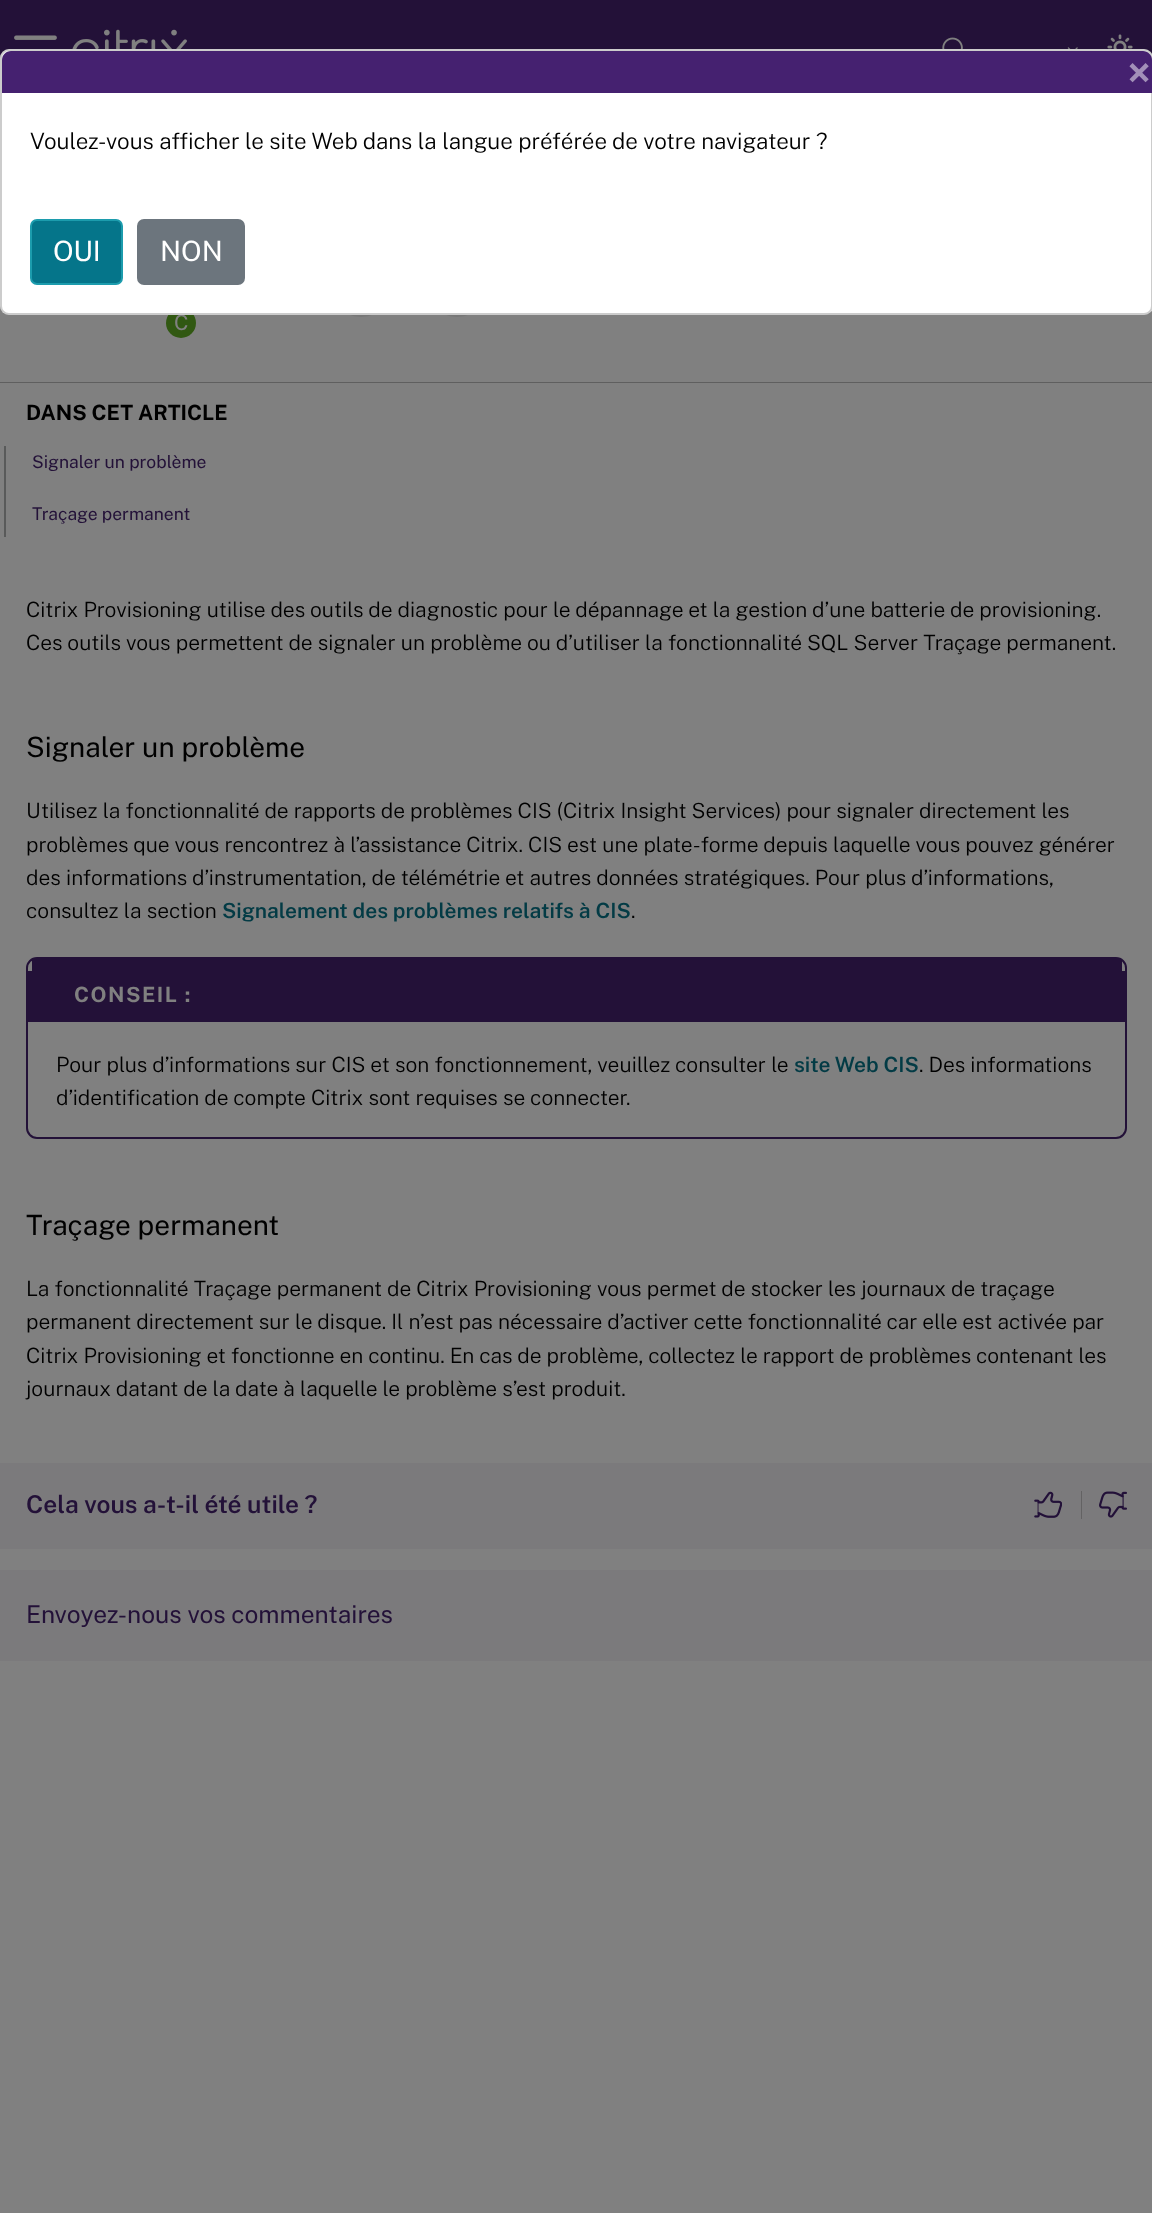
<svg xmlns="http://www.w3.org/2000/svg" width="1152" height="2213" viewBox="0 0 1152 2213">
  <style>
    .t1 { font: 21px Public Sans; fill: #808080; }
    .t2 { font: bold 42px Public Sans; fill: #a290b8; }
    .t3 { font: 300 22.4px Public Sans; fill: #000; }
    .t4 { font: 28px Public Sans; fill: #fff; }
    .t5 { font: bold 21px Public Sans; fill: #000; }
    .t6 { font: 17.5px Public Sans; fill: #231138; }
    .t7 { font: 300 21px Public Sans; fill: #000; }
    .t8 { font: 28px Public Sans; fill: #000; }
    .t9 { font: 600 21px Public Sans; fill: #033b45; }
    .t10 { font: bold 21px Public Sans; letter-spacing: 1.5px; fill: #808080; }
    .t11 { font: 600 24.5px Public Sans; fill: #231138; }
    .t12 { font: 24.5px Public Sans; fill: #231138; }
  </style>
  <rect width="100%" height="100%" fill="#808080"/>
  <rect x="0" y="0" width="1152" height="58" fill="#231138"/>
  <image x="14" y="35" width="43" height="5" href="images/1.png"/>
  <image x="72" y="29" width="115" height="20" href="images/2.png"/>
  <image x="942" y="37" width="21" height="12" href="images/3.png"/>
  <image x="1067" y="47" width="11" height="2" href="images/4.png"/>
  <image x="1107" y="34" width="26" height="15" href="images/5.png"/>
  <circle cx="361" cy="282" r="34" fill="none" stroke="#00000012" stroke-width="2"/>
  <circle cx="457" cy="282" r="34" fill="none" stroke="#00000012" stroke-width="2"/>
  <circle cx="181" cy="323" r="15" fill="#315812"/>
  <text x="174" y="330" class="t1">C</text>
  <rect x="0" y="49" width="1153" height="266" rx="9" fill="#fff"/>
  <rect x="1" y="50" width="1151" height="264" rx="8" fill="none" stroke="#00000033" stroke-width="2"/>
  <path d="M11 51H1143C1148 51 1152 55 1152 60V93H2V60C2 55 6 51 11 51Z" fill="#452170"/>
  <text x="1127" y="88" class="t2">×</text>
  <text x="30" y="149" class="t3">Voulez-vous afficher le site Web dans la langue préférée de votre navigateur ?</text>
  <rect x="31" y="220" width="91" height="64" rx="6" fill="#05758a" stroke="#1c9cad" stroke-width="2"/>
  <text x="53" y="261" class="t4">OUI</text>
  <rect x="138" y="220" width="106" height="64" rx="6" fill="#6c757d" stroke="#6c757d" stroke-width="2"/>
  <text x="160" y="261" class="t4">NON</text>
  <rect x="0" y="382" width="1152" height="1" fill="#5f5f5f"/>
  <text x="26" y="420" class="t5">DANS CET ARTICLE</text>
  <rect x="4" y="446" width="2" height="91" fill="#595a5a"/>
  <text x="32" y="468" class="t6">Signaler un problème</text>
  <text x="32" y="520" class="t6">Traçage permanent</text>
  <text x="26" y="617" class="t7">Citrix Provisioning utilise des outils de diagnostic pour le dépannage et la gestion d’une batterie de provisioning.</text>
  <text x="26" y="650" class="t7">Ces outils vous permettent de signaler un problème ou d’utiliser la fonctionnalité SQL Server Traçage permanent.</text>
  <text x="26" y="757" class="t8">Signaler un problème</text>
  <text x="26" y="818" class="t7">Utilisez la fonctionnalité de rapports de problèmes CIS (Citrix Insight Services) pour signaler directement les</text>
  <text x="26" y="852" class="t7">problèmes que vous rencontrez à l’assistance Citrix. CIS est une plate-forme depuis laquelle vous pouvez générer</text>
  <text x="26" y="885" class="t7">des informations d’instrumentation, de télémétrie et autres données stratégiques. Pour plus d’informations,</text>
  <text x="26" y="918" class="t7">consultez la section</text>
  <text x="222" y="918" class="t9">Signalement des problèmes relatifs à CIS</text>
  <text x="631" y="918" class="t7">.</text>
  <rect x="27" y="958" width="1099" height="180" rx="10" fill="none" stroke="#231138" stroke-width="2"/>
  <rect x="32" y="959" width="1090" height="12" fill="#231138"/>
  <rect x="28" y="971" width="1097" height="51" fill="#231138"/>
  <text x="74" y="1002" class="t10">CONSEIL :</text>
  <text x="56" y="1072" class="t7">Pour plus d’informations sur CIS et son fonctionnement, veuillez consulter le</text>
  <text x="794" y="1072" class="t9">site Web CIS</text>
  <text x="919" y="1072" class="t7">. Des informations</text>
  <text x="56" y="1105" class="t7">d’identification de compte Citrix sont requises se connecter.</text>
  <text x="26" y="1235" class="t8">Traçage permanent</text>
  <text x="26" y="1296" class="t7">La fonctionnalité Traçage permanent de Citrix Provisioning vous permet de stocker les journaux de traçage</text>
  <text x="26" y="1329" class="t7">permanent directement sur le disque. Il n’est pas nécessaire d’activer cette fonctionnalité car elle est activée par</text>
  <text x="26" y="1363" class="t7">Citrix Provisioning et fonctionne en continu. En cas de problème, collectez le rapport de problèmes contenant les</text>
  <text x="26" y="1396" class="t7">journaux datant de la date à laquelle le problème s’est produit.</text>
  <rect x="0" y="1463" width="1152" height="86" fill="#7b7a7c"/>
  <text x="26" y="1513" class="t11">Cela vous a-t-il été utile ?</text>
  <image x="1034" y="1491" width="28" height="27" href="images/6.png"/>
  <rect x="1081" y="1491" width="1" height="28" fill="#636263"/>
  <image x="1099" y="1491" width="28" height="27" href="images/7.png"/>
  <rect x="0" y="1570" width="1152" height="91" fill="#7b7a7c"/>
  <text x="26" y="1623" class="t12">Envoyez-nous vos commentaires</text>
</svg>
